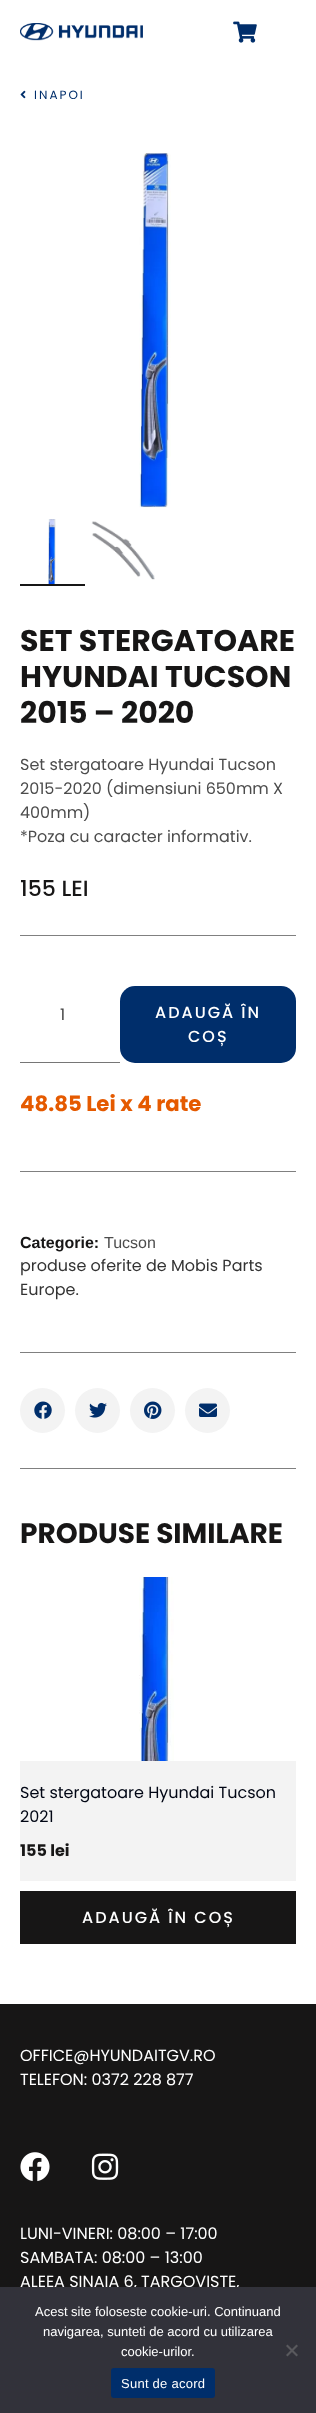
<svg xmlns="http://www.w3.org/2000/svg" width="316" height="2413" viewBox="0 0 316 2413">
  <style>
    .t1 { font: 12px Poppins; letter-spacing: 2px; fill: #002e6b; }
    .t2 { font: bold 30px Poppins; fill: #171616; }
    .t3 { font: 16px Poppins; fill: #4c4c4c; }
    .t4 { font: 500 22px Poppins; fill: #171616; }
    .t5 { font: 16px Poppins; fill: #444; }
    .t6 { font: 500 16px Poppins; letter-spacing: 2px; fill: #fff; }
    .t7 { font: bold 21.25px Poppins; fill: #e55a00; }
    .t8 { font: bold 16px Liberation Sans; fill: #171616; }
    .t9 { font: 16px Liberation Sans; fill: #4c4c4c; }
    .t10 { font: 16px Poppins; fill: #333; }
    .t11 { font: bold 28px Poppins; fill: #171616; }
    .t12 { font: 16px Poppins; fill: #010614; }
    .t13 { font: bold 16px Poppins; fill: #171616; }
    .t14 { font: 16px Poppins; fill: #fff; }
    .t15 { font: 13px Liberation Sans; fill: #fff; }
    .t16 { font: 13px Liberation Sans; letter-spacing: 0.25px; fill: #fff; }
  </style>
  <rect width="100%" height="100%" fill="#fff"/>
  <image x="20" y="23" width="123" height="18" href="images/1.png"/>
  <image x="233" y="21" width="24" height="22" href="images/2.png"/>
  <image x="20" y="90" width="6" height="9" href="images/3.png"/>
  <text x="34" y="99" class="t1">INAPOI</text>
  <image x="139" y="153" width="32" height="355" href="images/4.png"/>
  <rect x="20" y="584" width="65" height="2" fill="#171616"/>
  <image x="48" y="519" width="8" height="65" href="images/5.png"/>
  <image x="91" y="521" width="64" height="59" href="images/6.png"/>
  <text x="20" y="651" class="t2">SET STERGATOARE</text>
  <text x="20" y="687" class="t2">HYUNDAI TUCSON</text>
  <text x="20" y="723" class="t2">2015 – 2020</text>
  <text x="20" y="770" class="t3">Set stergatoare Hyundai Tucson</text>
  <text x="20" y="794" class="t3">2015-2020 (dimensiuni 650mm X</text>
  <text x="20" y="818" class="t3">400mm)</text>
  <text x="20" y="842" class="t3">*Poza cu caracter informativ.</text>
  <text x="20" y="896" class="t4">155 LEI</text>
  <rect x="20" y="935" width="276" height="1" fill="#808080"/>
  <rect x="20" y="1062" width="100" height="1" fill="#767676"/>
  <text x="60" y="1020" class="t5">1</text>
  <rect x="120" y="986" width="176" height="77" rx="15" fill="#002e6b"/>
  <text x="155" y="1018" class="t6">ADAUGĂ ÎN</text>
  <text x="188" y="1042" class="t6">COȘ</text>
  <text x="20" y="1111" class="t7">48.85 Lei x 4 rate</text>
  <rect x="20" y="1171" width="276" height="1" fill="#808080"/>
  <text x="20" y="1248" class="t8">Categorie:</text>
  <text x="104" y="1248" class="t9">Tucson</text>
  <text x="20" y="1271" class="t10">produse oferite de Mobis Parts</text>
  <text x="20" y="1295" class="t10">Europe.</text>
  <rect x="20" y="1352" width="276" height="1" fill="#808080"/>
  <rect x="20" y="1468" width="276" height="1" fill="#808080"/>
  <circle cx="42.5" cy="1410.5" r="22.5" fill="#f3f3f3"/>
  <image x="34" y="1401" width="18" height="18" href="images/7.png"/>
  <circle cx="97.5" cy="1410.5" r="22.5" fill="#f3f3f3"/>
  <image x="89" y="1402" width="18" height="16" href="images/8.png"/>
  <circle cx="152.5" cy="1410.5" r="22.5" fill="#f3f3f3"/>
  <image x="144" y="1401" width="18" height="18" href="images/9.png"/>
  <circle cx="207.5" cy="1410.5" r="22.5" fill="#f3f3f3"/>
  <image x="199" y="1403" width="18" height="14" href="images/10.png"/>
  <text x="20" y="1543" class="t11">PRODUSE SIMILARE</text>
  <image x="139" y="1577" width="35" height="184" href="images/11.png"/>
  <rect x="20" y="1761" width="276" height="120" fill="#f3f3f3"/>
  <text x="20" y="1798" class="t12">Set stergatoare Hyundai Tucson</text>
  <text x="20" y="1822" class="t12">2021</text>
  <text x="20" y="1856" class="t13">155 lei</text>
  <rect x="20" y="1891" width="276" height="53" fill="#171616"/>
  <text x="82" y="1923" class="t6">ADAUGĂ ÎN COȘ</text>
  <rect x="0" y="2004" width="316" height="283" fill="#171616"/>
  <text x="20" y="2061" class="t14">OFFICE@HYUNDAITGV.RO</text>
  <text x="20" y="2085" class="t14">TELEFON: 0372 228 877</text>
  <image x="20" y="2152" width="30" height="30" href="images/12.png"/>
  <image x="91" y="2153" width="28" height="27" href="images/13.png"/>
  <text x="20" y="2239" class="t14">LUNI-VINERI: 08:00 – 17:00</text>
  <text x="20" y="2263" class="t14">SAMBATA: 08:00 – 13:00</text>
  <text x="20" y="2287" class="t14">ALEEA SINAIA 6, TARGOVISTE,</text>
  <rect x="0" y="2287" width="316" height="126" fill="#32323a"/>
  <text x="35" y="2316" class="t15">Acest site foloseste cookie-uri. Continuand</text>
  <text x="43" y="2336" class="t15">navigarea, sunteti de acord cu utilizarea</text>
  <text x="121" y="2356" class="t15">cookie-urilor.</text>
  <path d="M296.5 2344.5L298 2346L287.5 2356.5L286 2355Z" fill="#59595d"/>
  <path d="M286 2346L287.5 2344.5L298 2355L296.5 2356.5Z" fill="#59595d"/>
  <rect x="111" y="2368" width="104" height="30" rx="3" fill="#002e6b"/>
  <text x="121" y="2388" class="t16">Sunt de acord</text>
</svg>
